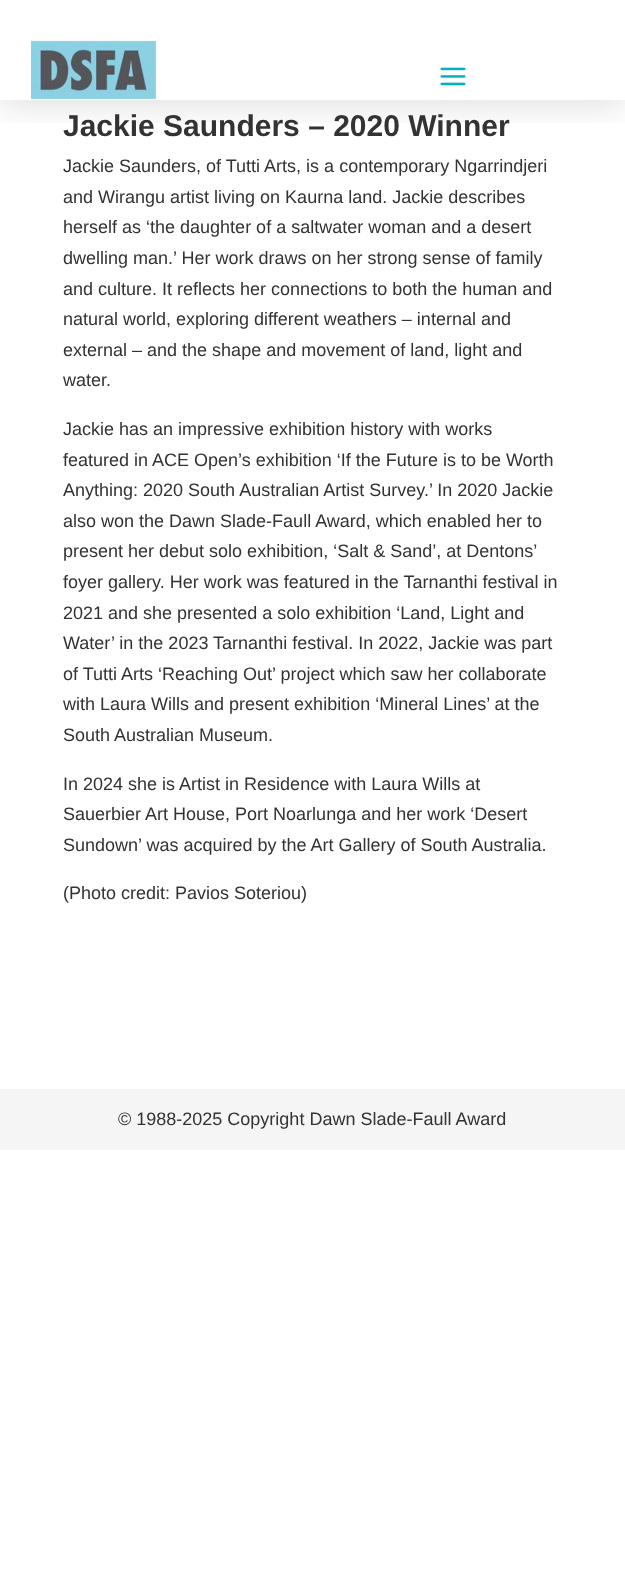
<svg xmlns="http://www.w3.org/2000/svg" width="625" height="1595" viewBox="0 0 625 1595">
  <style>
    .t1 { font: bold 30px Liberation Sans; fill: #333; }
    .t2 { font: 18px Liberation Sans; fill: #333; }
  </style>
  <defs>
    <clipPath id="clip1"><rect x="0" y="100" width="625" height="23"/></clipPath>
  </defs>
  <rect width="100%" height="100%" fill="#fff"/>
  <g clip-path="url(#clip1)">
    <rect x="0" y="2" width="625" height="100" fill="#00000026" filter="blur(19px)"/>
  </g>
  <image x="31" y="40" width="126" height="60" href="images/1.png"/>
  <image x="440" y="67" width="26" height="19" href="images/2.png"/>
  <text x="63" y="136" class="t1">Jackie Saunders – 2020 Winner</text>
  <text x="63" y="172" class="t2">Jackie Saunders, of Tutti Arts, is a contemporary Ngarrindjeri</text>
  <text x="63" y="203" class="t2">and Wirangu artist living on Kaurna land. Jackie describes</text>
  <text x="63" y="233" class="t2">herself as ‘the daughter of a saltwater woman and a desert</text>
  <text x="63" y="264" class="t2">dwelling man.’ Her work draws on her strong sense of family</text>
  <text x="63" y="295" class="t2">and culture. It reflects her connections to both the human and</text>
  <text x="63" y="325" class="t2">natural world, exploring different weathers – internal and</text>
  <text x="63" y="356" class="t2">external – and the shape and movement of land, light and</text>
  <text x="63" y="386" class="t2">water.</text>
  <text x="63" y="435" class="t2">Jackie has an impressive exhibition history with works</text>
  <text x="63" y="466" class="t2">featured in ACE Open’s exhibition ‘If the Future is to be Worth</text>
  <text x="63" y="496" class="t2">Anything: 2020 South Australian Artist Survey.’ In 2020 Jackie</text>
  <text x="63" y="527" class="t2">also won the Dawn Slade-Faull Award, which enabled her to</text>
  <text x="63" y="557" class="t2">present her debut solo exhibition, ‘Salt &amp; Sand’, at Dentons’</text>
  <text x="63" y="588" class="t2">foyer gallery. Her work was featured in the Tarnanthi festival in</text>
  <text x="63" y="619" class="t2">2021 and she presented a solo exhibition ‘Land, Light and</text>
  <text x="63" y="649" class="t2">Water’ in the 2023 Tarnanthi festival. In 2022, Jackie was part</text>
  <text x="63" y="680" class="t2">of Tutti Arts ‘Reaching Out’ project which saw her collaborate</text>
  <text x="63" y="710" class="t2">with Laura Wills and present exhibition ‘Mineral Lines’ at the</text>
  <text x="63" y="741" class="t2">South Australian Museum.</text>
  <text x="63" y="790" class="t2">In 2024 she is Artist in Residence with Laura Wills at</text>
  <text x="63" y="820" class="t2">Sauerbier Art House, Port Noarlunga and her work ‘Desert</text>
  <text x="63" y="851" class="t2">Sundown’ was acquired by the Art Gallery of South Australia.</text>
  <text x="63" y="899" class="t2">(Photo credit: Pavios Soteriou)</text>
  <rect x="0" y="1089" width="625" height="61" fill="#f5f5f5"/>
  <text x="118" y="1125" class="t2">© 1988-2025 Copyright Dawn Slade-Faull Award</text>
</svg>
